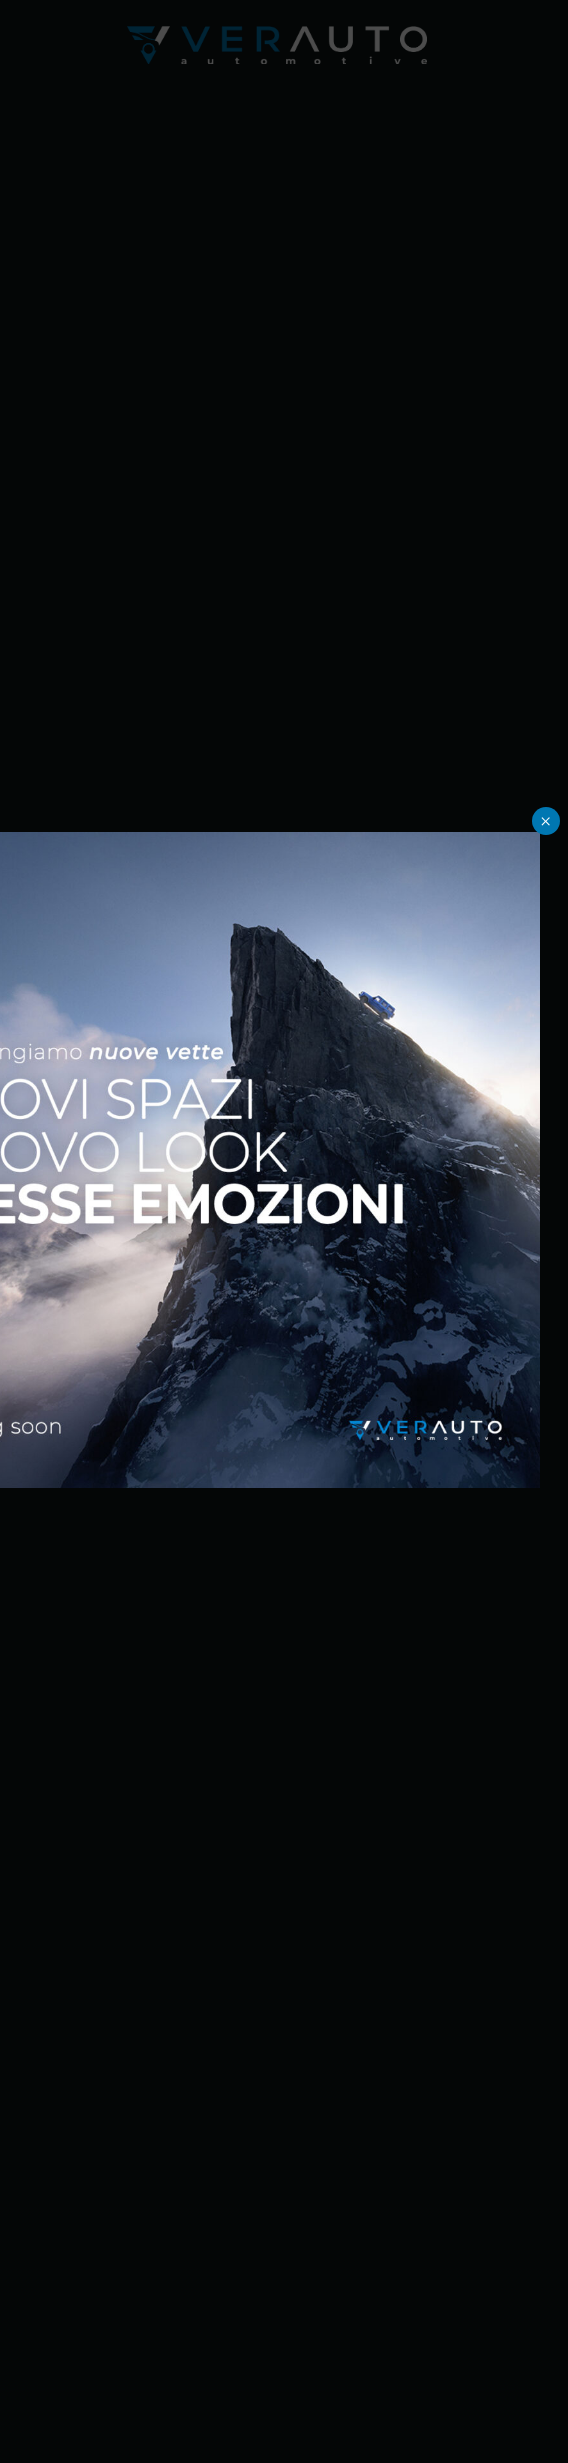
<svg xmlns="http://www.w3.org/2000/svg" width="568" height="2463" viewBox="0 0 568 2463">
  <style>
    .t1 { font: 20px Liberation Serif; fill: #fff; }
  </style>
  <rect width="100%" height="100%" fill="#040606"/>
  <image x="127" y="26" width="300" height="38" href="images/1.png"/>
  <image x="0" y="832" width="540" height="656" href="images/2.png"/>
  <circle cx="546" cy="821" r="14" fill="#0077b2"/>
  <text x="540" y="828" class="t1">×</text>
</svg>
